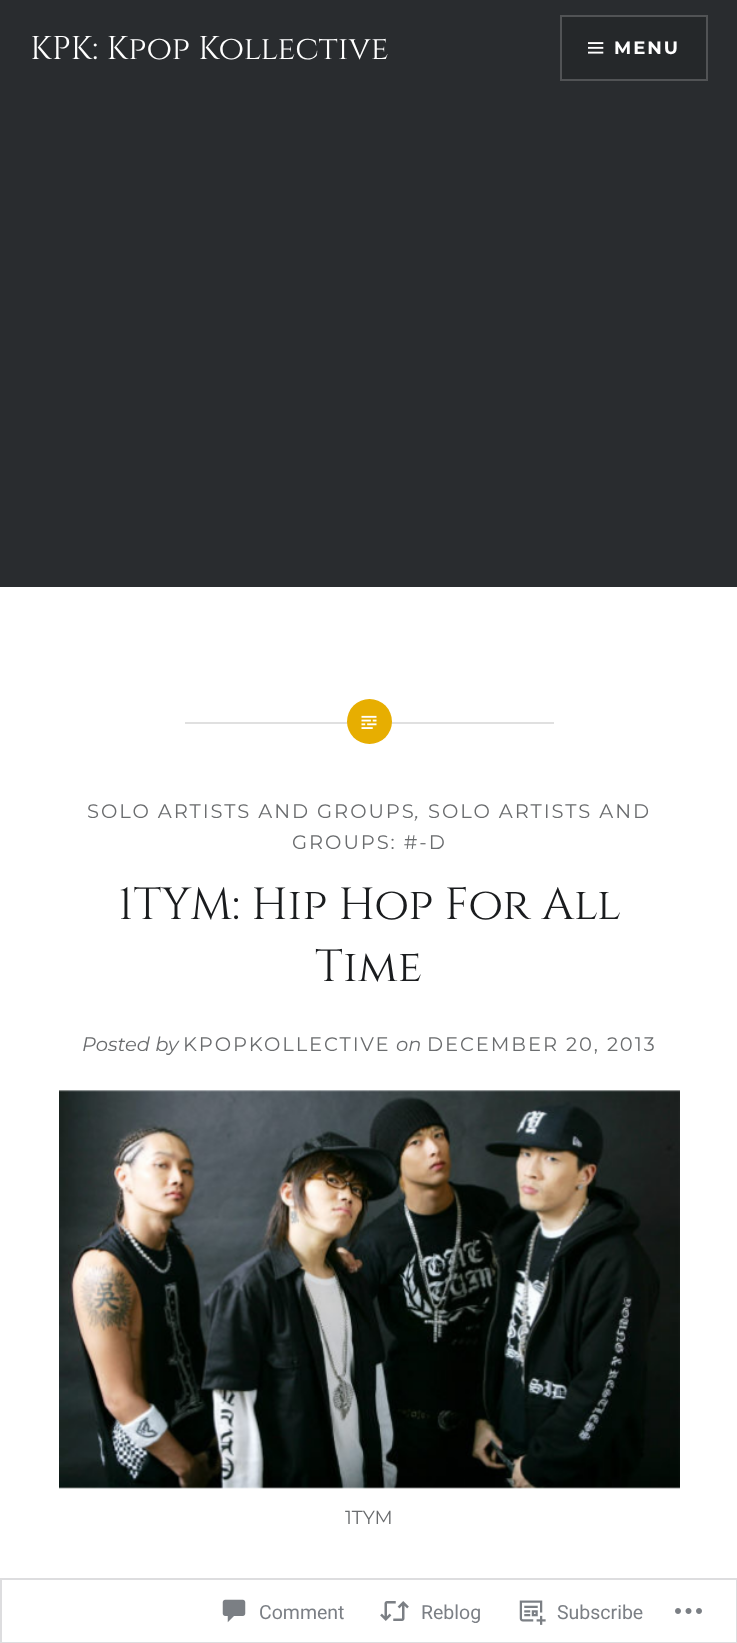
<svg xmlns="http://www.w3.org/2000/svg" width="737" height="1643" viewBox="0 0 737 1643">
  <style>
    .t1 { font: 33px Cinzel; fill: #fff; }
    .t2 { font: bold 18px Montserrat; letter-spacing: 2px; fill: #fff; }
    .t3 { font: 19.5px Montserrat; letter-spacing: 1.95px; fill: #6a6c6e; }
    .t4 { font: italic 19.5px Montserrat; letter-spacing: 1.95px; fill: #6a6c6e; }
    .t5 { font: 45px Cinzel; fill: #1a1c1e; }
    .t6 { font: italic 19.5px Montserrat; fill: #6a6c6e; }
    .t7 { font: 19px Montserrat; fill: #6a6c6e; }
    .t8 { font: 19.5px Roboto; fill: #7b7f85; }
  </style>
  <rect width="100%" height="100%" fill="#fff"/>
  <rect x="0" y="0" width="737" height="587" fill="#292c2f"/>
  <text x="30" y="59" class="t1">KPK: Kpop Kollective</text>
  <rect x="561" y="16" width="146" height="64" fill="#25282a" stroke="#515355" stroke-width="2"/>
  <image x="588" y="42" width="16" height="12" href="images/1.png"/>
  <text x="614" y="54" class="t2">MENU</text>
  <rect x="185" y="722" width="369" height="2" fill="#e0e0e0"/>
  <circle cx="369.5" cy="721.5" r="22.5" fill="#e7ae01"/>
  <image x="361" y="715" width="16" height="14" href="images/2.png"/>
  <text x="87" y="818" class="t3">SOLO ARTISTS AND GROUPS</text>
  <text x="415" y="818" class="t4">,</text>
  <text x="428" y="818" class="t3">SOLO ARTISTS AND</text>
  <text x="292" y="849" class="t3">GROUPS: #-D</text>
  <text x="118" y="919" class="t5">1TYM: Hip Hop For All</text>
  <text x="315" y="981" class="t5">Time</text>
  <text x="82" y="1051" class="t6">Posted by</text>
  <text x="183" y="1051" class="t3">KPOPKOLLECTIVE</text>
  <text x="396" y="1051" class="t6">on</text>
  <text x="427" y="1051" class="t3">DECEMBER 20, 2013</text>
  <image x="59" y="1090" width="621" height="399" href="images/3.png"/>
  <text x="345" y="1524" class="t7">1TYM</text>
  <rect x="1" y="1579" width="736" height="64" fill="none" stroke="#dcdcdefa" stroke-width="2"/>
  <image x="222" y="1599" width="24" height="24" href="images/4.png"/>
  <text x="259" y="1619" class="t8">Comment</text>
  <image x="380" y="1601" width="29" height="20" href="images/5.png"/>
  <text x="421" y="1619" class="t8">Reblog</text>
  <image x="519" y="1600" width="27" height="25" href="images/6.png"/>
  <text x="557" y="1619" class="t8">Subscribe</text>
  <image x="675" y="1608" width="27" height="6" href="images/7.png"/>
</svg>
